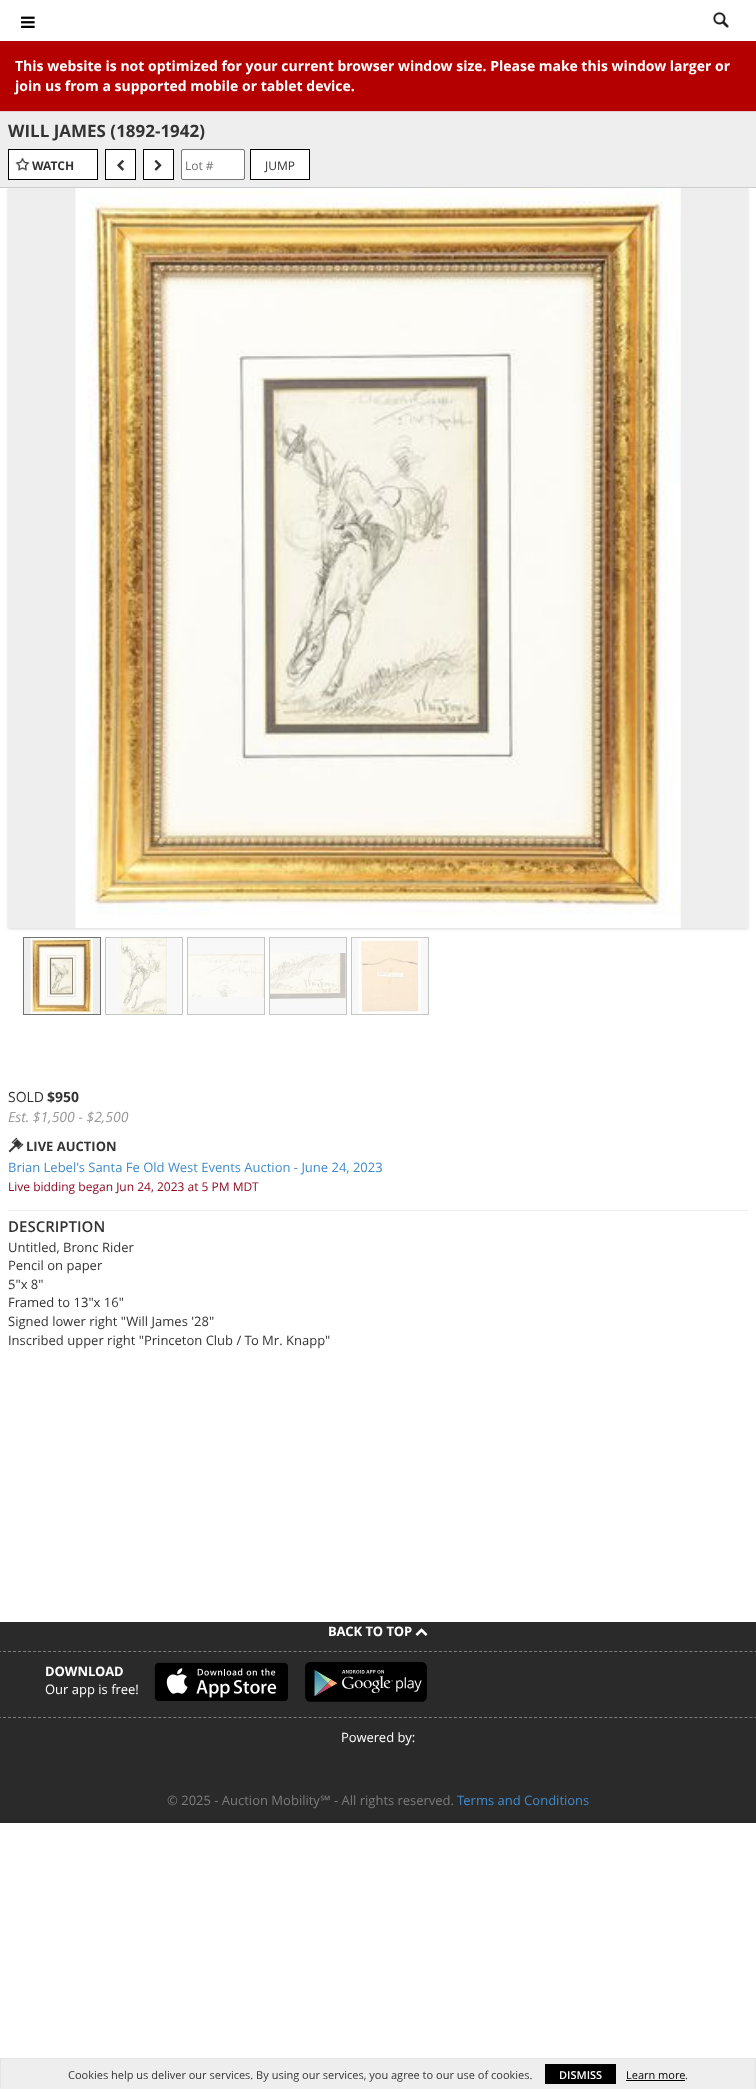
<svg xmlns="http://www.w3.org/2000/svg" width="756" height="2089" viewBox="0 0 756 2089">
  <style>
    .t1 { font: bold 14px Open Sans; fill: #fff; }
    .t2 { font: bold 17px Open Sans; fill: #333; }
    .t3 { font: bold 12px Open Sans; fill: #333; }
    .t4 { font: 12px Open Sans; fill: #757575; }
    .t5 { font: 12px Open Sans; fill: #333; }
    .t6 { font: 14px Open Sans; fill: #333; }
    .t7 { font: bold 14px Open Sans; fill: #333; }
    .t8 { font: italic 14px Open Sans; fill: #999; }
    .t9 { font: bold 13px Open Sans; fill: #333; }
    .t10 { font: 13px Open Sans; fill: #428bca; }
    .t11 { font: 12px Open Sans; fill: #89051d; }
    .t12 { font: 600 15px Open Sans; fill: #333; }
    .t13 { font: 13px Open Sans; fill: #333; }
    .t14 { font: bold 13px Open Sans; fill: #fff; }
    .t15 { font: 13px Open Sans; fill: #fff; }
    .t16 { font: 13px Open Sans; fill: #7c7c7c; }
    .t17 { font: 13px Noto Sans; fill: #7c7c7c; }
    .t18 { font: 11px Open Sans; fill: #333; }
    .t19 { font: 600 11px Open Sans; fill: #fff; }
    .t20 { font: 11px Open Sans; fill: #000; }
  </style>
  <rect width="100%" height="100%" fill="#fff"/>
  <image x="21" y="16" width="14" height="12" href="images/1.png"/>
  <image x="713" y="12" width="16" height="16" href="images/2.png"/>
  <rect x="0" y="41" width="756" height="70" fill="#b50000"/>
  <rect x="0" y="111" width="756" height="1" fill="#ebccd1"/>
  <text x="15" y="71" class="t1">This website is not optimized for your current browser window size. Please make this window larger or</text>
  <text x="15" y="91" class="t1">join us from a supported mobile or tablet device.</text>
  <rect x="0" y="112" width="756" height="75" fill="#eee"/>
  <rect x="0" y="187" width="756" height="1" fill="#ccc"/>
  <text x="8" y="137" class="t2">WILL JAMES (1892-1942)</text>
  <rect x="8.5" y="149.5" width="89" height="30" fill="#fff" stroke="#000"/>
  <image x="15" y="157" width="15" height="14" href="images/3.png"/>
  <text x="32" y="170" class="t3">WATCH</text>
  <rect x="105.5" y="149.5" width="30" height="30" fill="#fff" stroke="#000"/>
  <image x="117" y="159" width="7" height="12" href="images/4.png"/>
  <rect x="143.5" y="149.5" width="30" height="30" fill="#fff" stroke="#000"/>
  <image x="154" y="159" width="8" height="12" href="images/5.png"/>
  <rect x="181.5" y="149.5" width="63" height="30" rx="1.5" fill="#fff" stroke="#767676"/>
  <text x="185" y="170" class="t4">Lot #</text>
  <rect x="250.5" y="149.5" width="59" height="30" fill="#fff" stroke="#000"/>
  <text x="265" y="170" class="t5">JUMP</text>
  <rect x="8" y="189" width="740" height="740" fill="#dad9d7" filter="blur(1.5px)"/>
  <image x="8" y="188" width="740" height="740" href="images/6.png"/>
  <rect x="23.5" y="937.5" width="77" height="77" fill="none" stroke="#717171"/>
  <rect x="105.5" y="937.5" width="77" height="77" fill="none" stroke="#c6c6c6"/>
  <rect x="187.5" y="937.5" width="77" height="77" fill="none" stroke="#c6c6c6"/>
  <rect x="269.5" y="937.5" width="77" height="77" fill="none" stroke="#c6c6c6"/>
  <rect x="351.5" y="937.5" width="77" height="77" fill="none" stroke="#c6c6c6"/>
  <image x="24" y="938" width="76" height="76" href="images/7.png"/>
  <image x="106" y="938" width="76" height="76" href="images/8.png"/>
  <image x="188" y="938" width="76" height="76" href="images/9.png"/>
  <image x="270" y="938" width="76" height="76" href="images/10.png"/>
  <image x="352" y="938" width="76" height="76" href="images/11.png"/>
  <text x="8" y="1102" class="t6">SOLD</text>
  <text x="47" y="1102" class="t7">$950</text>
  <text x="8" y="1122" class="t8">Est. $1,500 - $2,500</text>
  <image x="8" y="1137" width="16" height="16" href="images/12.png"/>
  <text x="26" y="1151" class="t9">LIVE AUCTION</text>
  <text x="8" y="1172" class="t10">Brian Lebel's Santa Fe Old West Events Auction - June 24, 2023</text>
  <text x="8" y="1191" class="t11">Live bidding began Jun 24, 2023 at 5 PM MDT</text>
  <rect x="8" y="1210" width="740" height="1" fill="#eee"/>
  <text x="8" y="1232" class="t12">DESCRIPTION</text>
  <text x="8" y="1252" class="t13">Untitled, Bronc Rider</text>
  <text x="8" y="1270" class="t13">Pencil on paper</text>
  <text x="8" y="1289" class="t13">5"x 8"</text>
  <text x="8" y="1307" class="t13">Framed to 13"x 16"</text>
  <text x="8" y="1326" class="t13">Signed lower right "Will James '28"</text>
  <text x="8" y="1345" class="t13">Inscribed upper right "Princeton Club / To Mr. Knapp"</text>
  <rect x="0" y="1622" width="756" height="201" fill="#2a2a2a"/>
  <path d="M-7 1651.5H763" fill="none" stroke="#7c7c7c" stroke-dasharray="3 2.01"/>
  <text x="328" y="1636" class="t14">BACK TO TOP</text>
  <image x="415" y="1628" width="13" height="8" href="images/13.png"/>
  <path d="M-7 1717.5H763" fill="none" stroke="#7c7c7c" stroke-dasharray="3 2.01"/>
  <text x="45" y="1676" class="t14">DOWNLOAD</text>
  <text x="45" y="1694" class="t15">Our app is free!</text>
  <image x="154" y="1662" width="134" height="39" href="images/14.png"/>
  <image x="305" y="1662" width="122" height="40" href="images/15.png"/>
  <text x="341" y="1742" class="t15">Powered by:</text>
  <text x="167" y="1805" class="t16">© 2025 - Auction Mobility</text>
  <text x="320" y="1805" class="t17">℠</text>
  <text x="334" y="1805" class="t16">- All rights reserved.</text>
  <text x="457" y="1805" class="t10">Terms and Conditions</text>
  <rect x="1" y="2059" width="754" height="30" fill="#eee"/>
  <rect x="0" y="2058" width="756" height="1" fill="#e4e4e4"/>
  <rect x="755" y="2058" width="1" height="31" fill="#e4e4e4"/>
  <rect x="0" y="2058" width="1" height="31" fill="#e4e4e4"/>
  <text x="68" y="2079" class="t18">Cookies help us deliver our services. By using our services, you agree to our use of cookies.</text>
  <rect x="545" y="2064" width="71" height="20" fill="#000"/>
  <text x="559" y="2079" class="t19">DISMISS</text>
  <text x="626" y="2079" class="t20">Learn more</text>
  <rect x="626" y="2080" width="59" height="1" fill="#000"/>
  <text x="685" y="2079" class="t18">.</text>
</svg>
